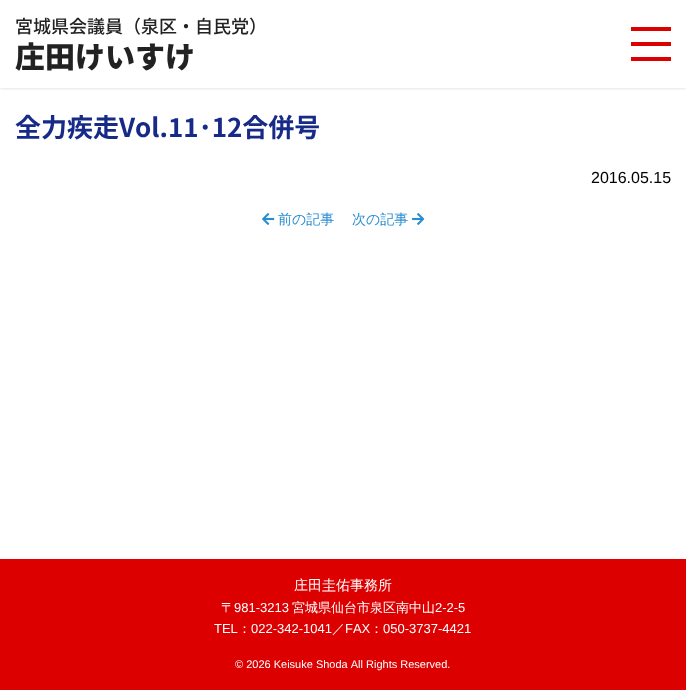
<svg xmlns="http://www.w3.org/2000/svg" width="686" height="691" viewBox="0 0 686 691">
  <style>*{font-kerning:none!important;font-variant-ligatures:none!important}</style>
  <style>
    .t1 { font: 500 18px Noto Sans JP; fill: #222; }
    .t2 { font: 900 30px Noto Sans JP; fill: #222; }
    .t3 { font: bold 26px Noto Sans JP; fill: #172a88; }
    .t4 { font: 16px Liberation Sans; fill: #000; }
    .t5 { font: 500 14px WenQuanYi Zen Hei; fill: #278dd2; }
    .t6 { font: 500 14px WenQuanYi Zen Hei; fill: #fff; }
    .t7 { font: 500 13px WenQuanYi Zen Hei; fill: #fff; }
    .t8 { font: 13px Liberation Sans; fill: #fff; }
    .t9 { font: 11px Liberation Sans; fill: #fff; }
  </style>
  <defs>
    <clipPath id="clip1"><rect x="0" y="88" width="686" height="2"/></clipPath>
  </defs>
  <rect width="100%" height="100%" fill="#fff"/>
  <g clip-path="url(#clip1)">
    <rect x="0" y="1" width="686" height="88" fill="#0000001a" filter="blur(1.5px)"/>
  </g>
  <text x="15" y="33" class="t1">宮城県会議員（泉区・自民党）</text>
  <text x="15" y="68" class="t2">庄田けいすけ</text>
  <rect x="631" y="27" width="40" height="4" fill="#d00"/>
  <rect x="631" y="42" width="40" height="4" fill="#d00"/>
  <rect x="631" y="57" width="40" height="4" fill="#d00"/>
  <text x="15" y="137" class="t3">全力疾走Vol.11･12合併号</text>
  <text x="591" y="183" class="t4">2016.05.15</text>
  <image x="262" y="213" width="13" height="12" href="images/1.png"/>
  <text x="278" y="224" class="t5">前の記事</text>
  <text x="352" y="224" class="t5">次の記事</text>
  <image x="412" y="213" width="13" height="12" href="images/2.png"/>
  <rect x="0" y="559" width="686" height="131" fill="#d00"/>
  <text x="294" y="590" class="t6">庄田圭佑事務所</text>
  <text x="221" y="612" class="t7">〒</text>
  <text x="234" y="612" class="t8">981-3213</text>
  <text x="292" y="612" class="t7">宮城県仙台市泉区南中山</text>
  <text x="435" y="612" class="t8">2-2-5</text>
  <text x="214" y="633" class="t8">TEL</text>
  <text x="238" y="633" class="t7">：</text>
  <text x="251" y="633" class="t8">022-342-1041</text>
  <text x="332" y="633" class="t7">／</text>
  <text x="345" y="633" class="t8">FAX</text>
  <text x="370" y="633" class="t7">：</text>
  <text x="383" y="633" class="t8">050-3737-4421</text>
  <text x="235" y="668" class="t9">© 2026 Keisuke Shoda All Rights Reserved.</text>
</svg>
